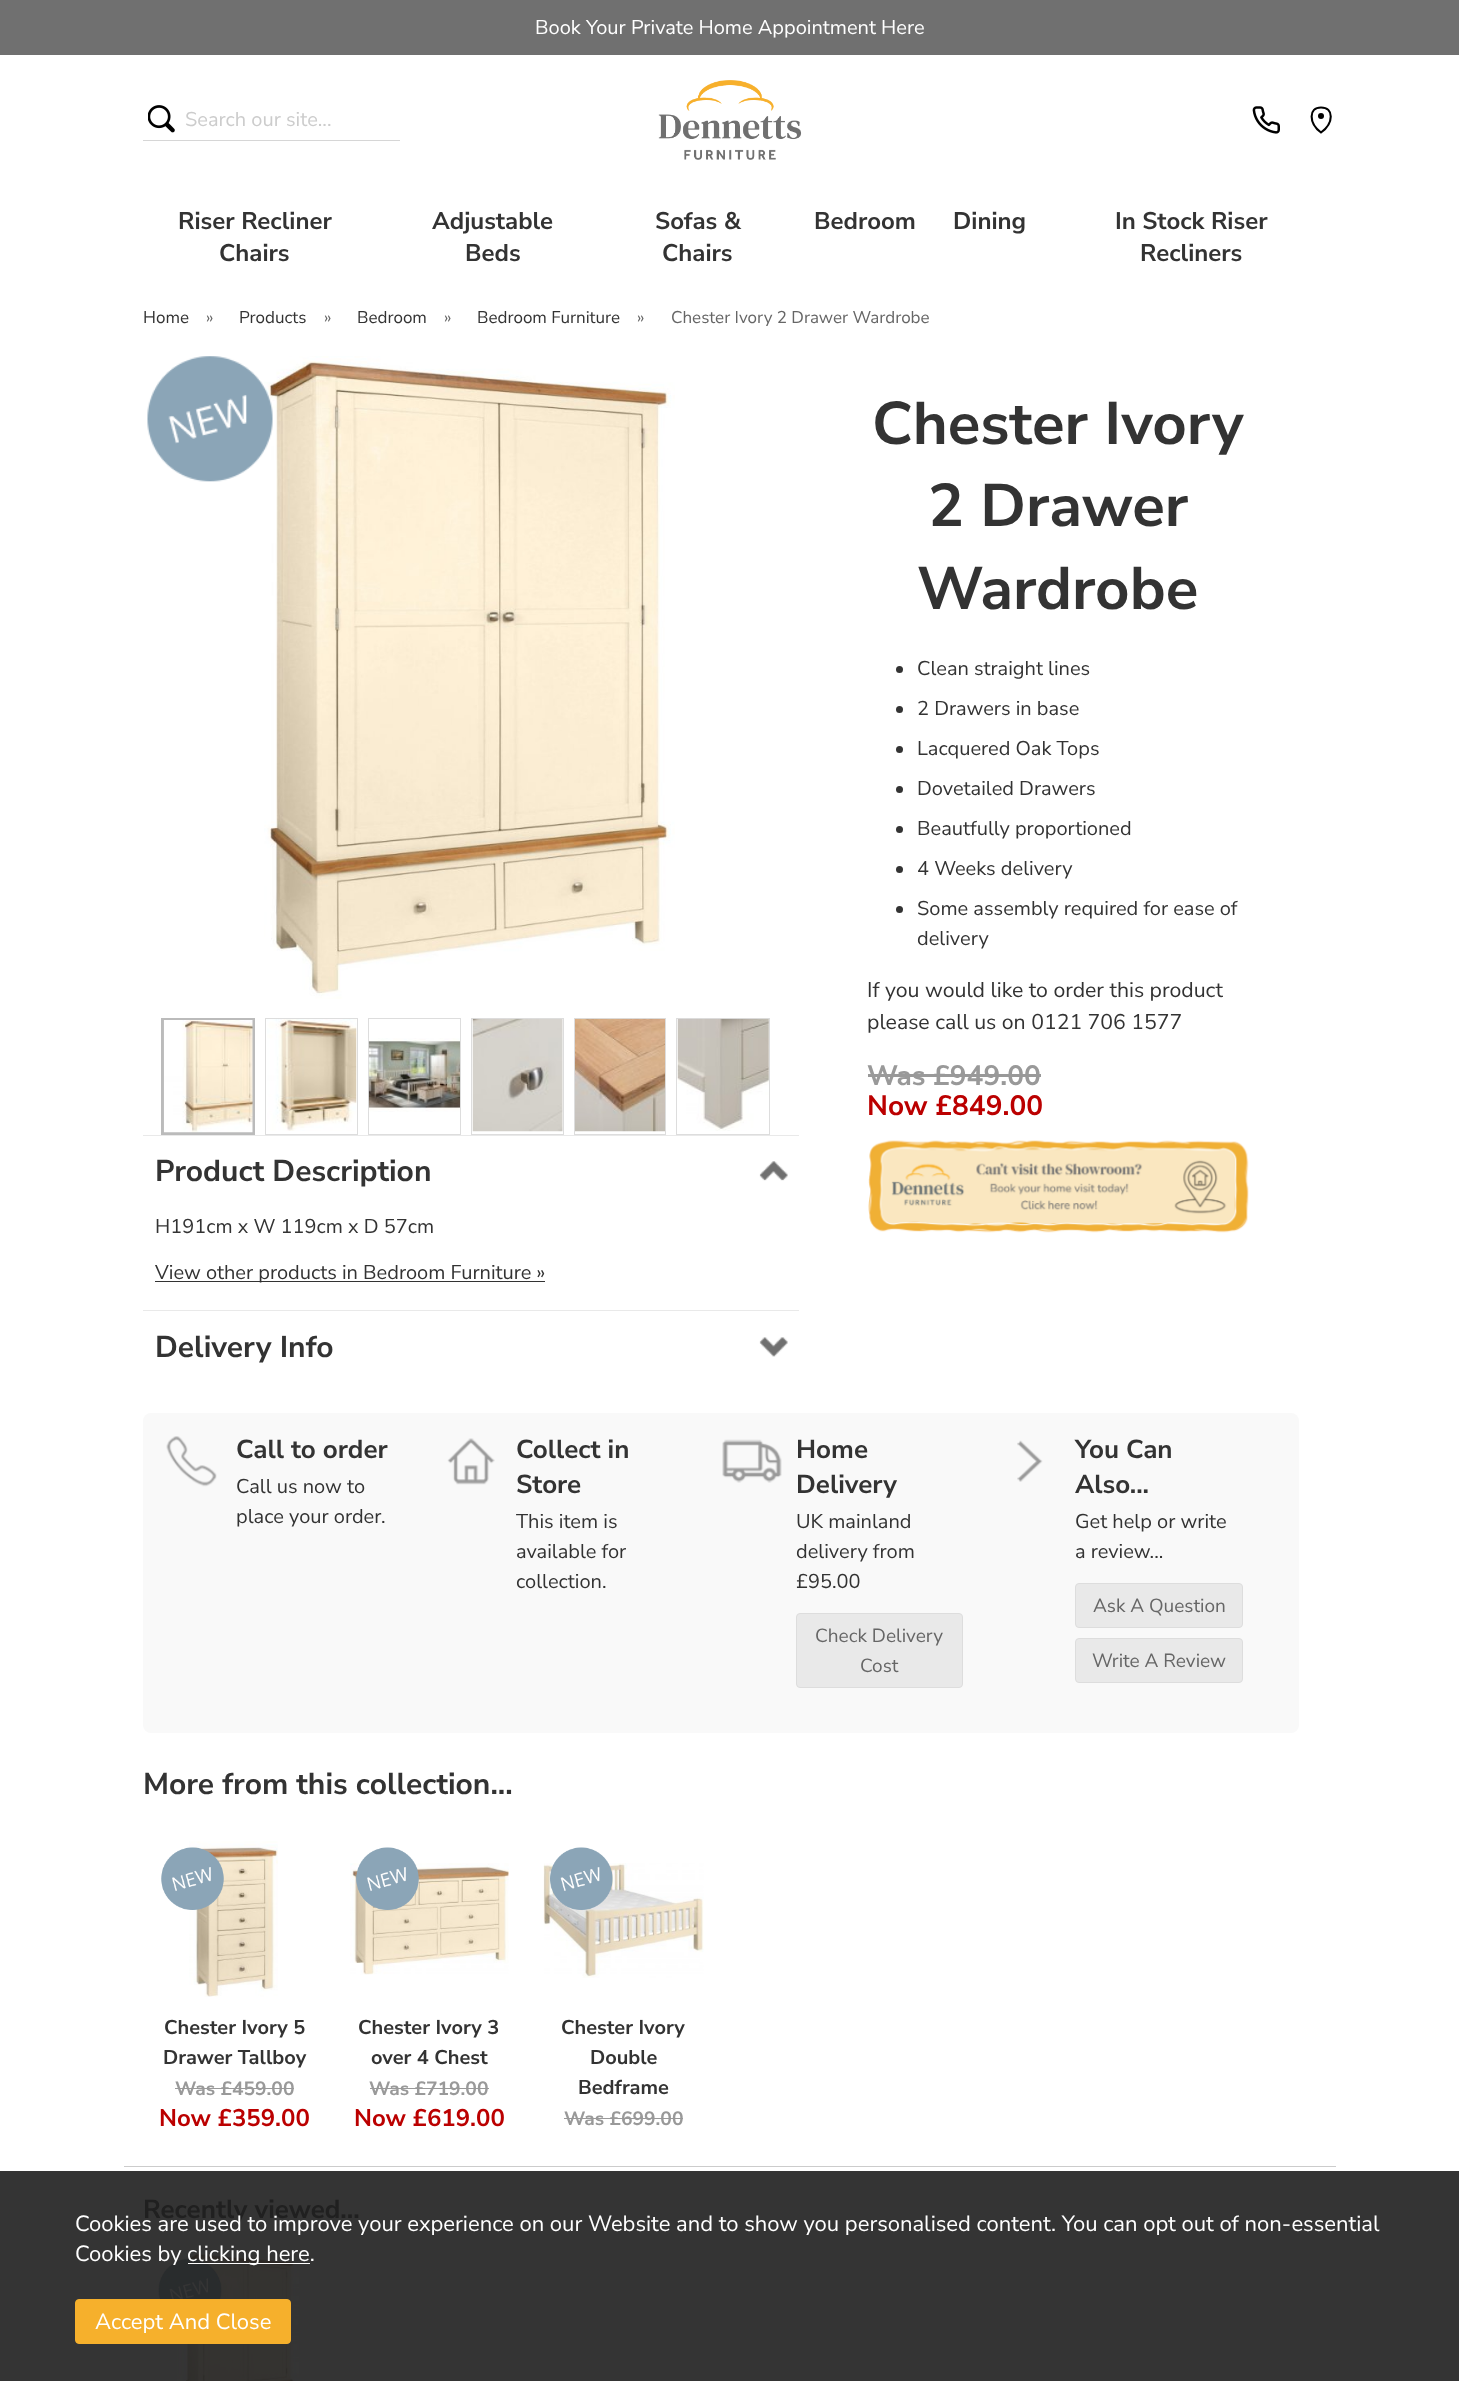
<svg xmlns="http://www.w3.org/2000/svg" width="1459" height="2381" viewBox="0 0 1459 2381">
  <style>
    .t1 { font: 20px Nunito Sans; fill: #fff; }
    .t2 { font: 20px Nunito Sans; fill: #ccc; }
    .t3 { font: bold 24px Nunito Sans; fill: #333; }
    .t4 { font: 17px Nunito Sans; fill: #333; }
    .t5 { font: 17px Nunito Sans; fill: #666; }
    .t6 { font: bold 60px Nunito Sans; fill: #333; }
    .t7 { font: 20px Nunito Sans; fill: #333; }
    .t8 { font: 21.25px Nunito Sans; fill: #333; }
    .t9 { font: bold 28px Nunito Sans; fill: #999; }
    .t10 { font: bold 28px Nunito Sans; fill: #b00; }
    .t11 { font: bold 30px Nunito Sans; fill: #333; }
    .t12 { font: bold 26px Nunito Sans; fill: #333; }
    .t13 { font: 19px Nunito Sans; fill: #666; }
    .t14 { font: bold 20px Nunito Sans; fill: #333; }
    .t15 { font: bold 19.25px Nunito Sans; fill: #999; }
    .t16 { font: bold 24px Nunito Sans; fill: #b00; }
    .t17 { font: bold 26px Nunito Sans; fill: #202020; }
    .t18 { font: 22px Nunito Sans; fill: #fff; }
  </style>
  <rect width="100%" height="100%" fill="#fff"/>
  <rect x="0" y="2171" width="1459" height="210" fill="#343434"/>
  <rect x="0" y="0" width="1459" height="55" fill="#707070"/>
  <text x="535" y="34" class="t1">Book Your Private Home Appointment Here</text>
  <image x="148" y="105" width="27" height="28" href="images/1.png"/>
  <rect x="143" y="140" width="257" height="1" fill="#d6d6d6"/>
  <text x="185" y="126" class="t2">Search our site...</text>
  <image x="658" y="80" width="144" height="80" href="images/2.png"/>
  <image x="1252" y="106" width="28" height="28" href="images/3.png"/>
  <path d="M1321 132.5C1308.5 123 1308.5 107.5 1321 107.5C1334 107.5 1334 123 1321 132.5Z" fill="none" stroke="#000" stroke-width="2.1"/>
  <circle cx="1321" cy="116" r="3" fill="#000"/>
  <text x="178" y="229" class="t3">Riser Recliner</text>
  <text x="219" y="261" class="t3">Chairs</text>
  <text x="432" y="229" class="t3">Adjustable</text>
  <text x="465" y="261" class="t3">Beds</text>
  <text x="655" y="229" class="t3">Sofas &amp;</text>
  <text x="662" y="261" class="t3">Chairs</text>
  <text x="814" y="229" class="t3">Bedroom</text>
  <text x="953" y="229" class="t3">Dining</text>
  <text x="1115" y="229" class="t3">In Stock Riser</text>
  <text x="1140" y="261" class="t3">Recliners</text>
  <text x="143" y="323" class="t4">Home</text>
  <text x="206" y="323" class="t5">»</text>
  <text x="239" y="323" class="t4">Products</text>
  <text x="324" y="323" class="t5">»</text>
  <text x="357" y="323" class="t4">Bedroom</text>
  <text x="444" y="323" class="t5">»</text>
  <text x="477" y="323" class="t4">Bedroom Furniture</text>
  <text x="637" y="323" class="t5">»</text>
  <text x="671" y="323" class="t5">Chester Ivory 2 Drawer Wardrobe</text>
  <text x="872" y="444" class="t6">Chester Ivory</text>
  <text x="928" y="526" class="t6">2 Drawer</text>
  <text x="917" y="609" class="t6">Wardrobe</text>
  <circle cx="899.5" cy="669.5" r="3.5" fill="#333"/>
  <text x="917" y="675" class="t7">Clean straight lines</text>
  <circle cx="899.5" cy="709.5" r="3.5" fill="#333"/>
  <text x="917" y="715" class="t7">2 Drawers in base</text>
  <circle cx="899.5" cy="749.5" r="3.5" fill="#333"/>
  <text x="917" y="755" class="t7">Lacquered Oak Tops</text>
  <circle cx="899.5" cy="789.5" r="3.5" fill="#333"/>
  <text x="917" y="795" class="t7">Dovetailed Drawers</text>
  <circle cx="899.5" cy="829.5" r="3.5" fill="#333"/>
  <text x="917" y="835" class="t7">Beautfully proportioned</text>
  <circle cx="899.5" cy="869.5" r="3.5" fill="#333"/>
  <text x="917" y="875" class="t7">4 Weeks delivery</text>
  <circle cx="899.5" cy="909.5" r="3.5" fill="#333"/>
  <text x="917" y="915" class="t7">Some assembly required for ease of</text>
  <text x="917" y="945" class="t7">delivery</text>
  <text x="867" y="997" class="t8">If you would like to order this product</text>
  <text x="867" y="1029" class="t8">please call us on 0121 706 1577</text>
  <text x="867" y="1085" class="t9">Was £949.00</text>
  <rect x="868" y="1074" width="173" height="3" fill="#999"/>
  <text x="867" y="1115" class="t10">Now £849.00</text>
  <image x="868" y="1140" width="381" height="93" href="images/4.png"/>
  <image x="264" y="356" width="411" height="643" href="images/6.png"/>
  <image x="147" y="356" width="126" height="126" href="images/5.png"/>
  <rect x="162.5" y="1019.5" width="91" height="114" fill="none" stroke="#bbb" stroke-width="3"/>
  <image x="163" y="1020" width="90" height="113" href="images/7.png"/>
  <rect x="265.5" y="1018.5" width="92" height="116" fill="none" stroke="#ddd"/>
  <image x="267" y="1019" width="90" height="112" href="images/8.png"/>
  <rect x="368.5" y="1018.5" width="92" height="116" fill="none" stroke="#ddd"/>
  <image x="368" y="1038" width="92" height="74" href="images/9.png"/>
  <rect x="471.5" y="1018.5" width="92" height="116" fill="none" stroke="#ddd"/>
  <image x="472" y="1018" width="91" height="114" href="images/10.png"/>
  <rect x="574.5" y="1018.5" width="91" height="116" fill="none" stroke="#ddd"/>
  <image x="575" y="1018" width="90" height="114" href="images/11.png"/>
  <rect x="676.5" y="1018.5" width="93" height="116" fill="none" stroke="#ddd"/>
  <image x="677" y="1018" width="92" height="113" href="images/12.png"/>
  <image x="759" y="1161" width="29" height="20" href="images/13.png"/>
  <rect x="143" y="1135" width="656" height="1" fill="#e9e9e9"/>
  <text x="155" y="1181" class="t11">Product Description</text>
  <text x="155" y="1233" class="t7">H191cm x W 119cm x D 57cm</text>
  <rect x="155" y="1281" width="390" height="1" fill="#333"/>
  <text x="155" y="1279" class="t7">View other products in Bedroom Furniture »</text>
  <image x="759" y="1337" width="29" height="20" href="images/14.png"/>
  <rect x="143" y="1310" width="656" height="1" fill="#e9e9e9"/>
  <text x="155" y="1357" class="t11">Delivery Info</text>
  <rect x="143" y="1413" width="1156" height="320" rx="8" fill="#f9f9f9"/>
  <image x="166" y="1436" width="51" height="51" href="images/15.png"/>
  <text x="236" y="1458" class="t12">Call to order</text>
  <text x="236" y="1493" class="t7">Call us now to</text>
  <text x="236" y="1523" class="t7">place your order.</text>
  <image x="447" y="1438" width="48" height="47" href="images/16.png"/>
  <text x="516" y="1458" class="t12">Collect in</text>
  <text x="516" y="1493" class="t12">Store</text>
  <text x="516" y="1528" class="t7">This item is</text>
  <text x="516" y="1558" class="t7">available for</text>
  <text x="516" y="1588" class="t7">collection.</text>
  <image x="722" y="1439" width="60" height="44" href="images/17.png"/>
  <text x="796" y="1458" class="t12">Home</text>
  <text x="796" y="1493" class="t12">Delivery</text>
  <text x="796" y="1528" class="t7">UK mainland</text>
  <text x="796" y="1558" class="t7">delivery from</text>
  <text x="796" y="1588" class="t7">£95.00</text>
  <rect x="796.5" y="1613.5" width="166" height="74" rx="3.5" fill="#e9e9e9" stroke="#ddd"/>
  <text x="815" y="1642" class="t13">Check Delivery</text>
  <text x="860" y="1672" class="t13">Cost</text>
  <image x="1017" y="1440" width="26" height="42" href="images/18.png"/>
  <text x="1075" y="1458" class="t12">You Can</text>
  <text x="1075" y="1493" class="t12">Also...</text>
  <text x="1075" y="1528" class="t7">Get help or write</text>
  <text x="1075" y="1558" class="t7">a review...</text>
  <rect x="1075.5" y="1583.5" width="167" height="44" rx="3.5" fill="#e9e9e9" stroke="#ddd"/>
  <text x="1093" y="1612" class="t13">Ask A Question</text>
  <rect x="1075.5" y="1638.5" width="167" height="44" rx="3.5" fill="#e9e9e9" stroke="#ddd"/>
  <text x="1092" y="1667" class="t13">Write A Review</text>
  <text x="143" y="1794" class="t11">More from this collection...</text>
  <image x="189" y="1841" width="89" height="156" href="images/19.png"/>
  <image x="161" y="1847" width="63" height="63" href="images/20.png"/>
  <text x="164" y="2034" class="t14">Chester Ivory 5</text>
  <text x="163" y="2064" class="t14">Drawer Tallboy</text>
  <text x="175" y="2095" class="t15">Was £459.00</text>
  <rect x="175" y="2088" width="119" height="1" fill="#999"/>
  <text x="159" y="2126" class="t16">Now £359.00</text>
  <image x="350" y="1863" width="159" height="112" href="images/22.png"/>
  <image x="356" y="1847" width="63" height="63" href="images/21.png"/>
  <text x="358" y="2034" class="t14">Chester Ivory 3</text>
  <text x="371" y="2064" class="t14">over 4 Chest</text>
  <text x="369" y="2095" class="t15">Was £719.00</text>
  <rect x="370" y="2088" width="119" height="1" fill="#999"/>
  <text x="354" y="2126" class="t16">Now £619.00</text>
  <image x="543" y="1863" width="161" height="115" href="images/24.png"/>
  <image x="550" y="1847" width="63" height="63" href="images/23.png"/>
  <text x="561" y="2034" class="t14">Chester Ivory</text>
  <text x="590" y="2064" class="t14">Double</text>
  <text x="578" y="2094" class="t14">Bedframe</text>
  <text x="564" y="2125" class="t15">Was £699.00</text>
  <rect x="564" y="2118" width="119" height="1" fill="#999"/>
  <rect x="124" y="2166" width="1212" height="1" fill="#ccc"/>
  <text x="143" y="2218" class="t17">Recently viewed...</text>
  <image x="177" y="2252" width="122" height="129" href="images/25.png"/>
  <image x="158" y="2258" width="64" height="41" href="images/26.png"/>
  <text x="75" y="2231" class="t18">Cookies are used to improve your experience on our Website and to show you personalised content. You can opt out of non-essential</text>
  <text x="75" y="2261" class="t18">Cookies by</text>
  <rect x="188" y="2263" width="122" height="1" fill="#fff"/>
  <text x="187" y="2261" class="t18">clicking here.</text>
  <rect x="75.5" y="2299.5" width="215" height="44" rx="3.5" fill="#f6b02c" stroke="#f6b02c"/>
  <text x="95" y="2329" class="t18">Accept And Close</text>
</svg>
